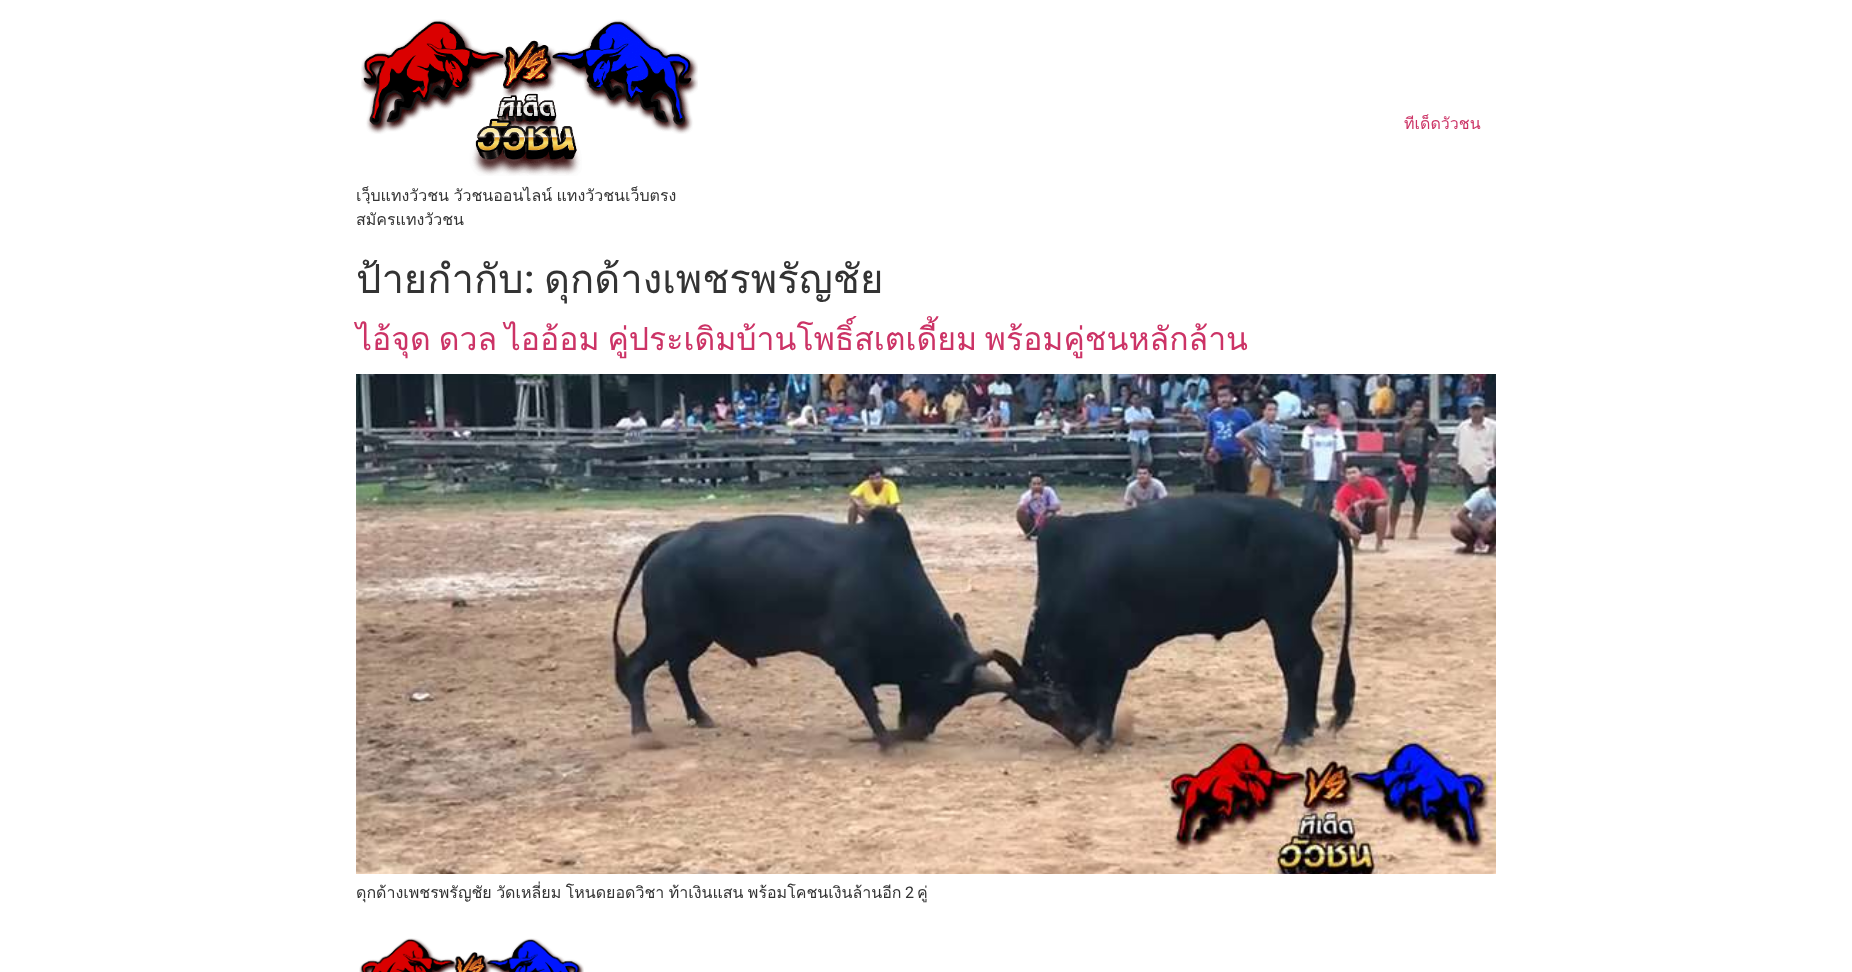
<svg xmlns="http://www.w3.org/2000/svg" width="1852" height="972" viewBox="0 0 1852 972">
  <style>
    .t1 { font: 16px Loma; fill: #c36; }
    .t2 { font: 16px Loma; fill: #333; }
    .t3 { font: 40px Loma; fill: #333; }
    .t4 { font: 500 40px Roboto; fill: #333; }
    .t5 { font: 32px Loma; fill: #c36; }
    .t6 { font: 16px Roboto; fill: #333; }
  </style>
  <rect width="100%" height="100%" fill="#fff"/>
  <text x="1404" y="129" class="t1">ทีเด็ดวัวชน</text>
  <image x="361" y="19" width="337" height="157" href="images/1.png"/>
  <text x="356" y="201" word-spacing="-1" class="t2">เว็ฺบแทงวัวชน วัวชนออนไลน์ แทงวัวชนเว็บตรง</text>
  <text x="356" y="225" class="t2">สมัครแทงวัวชน</text>
  <text x="356" y="293" class="t3">ป้ายกำกับ</text>
  <text x="524" y="293" class="t4">:</text>
  <text x="544" y="293" class="t3">ดุกด้างเพชรพรัญชัย</text>
  <text x="356" y="350" word-spacing="-3" class="t5">ไอ้จุด ดวล ไออ้อม คู่ประเดิมบ้านโพธิ์สเตเดี้ยม พร้อมคู่ชนหลักล้าน</text>
  <image x="356" y="374" width="1140" height="500" href="images/2.png"/>
  <text x="356" y="898" word-spacing="-1" class="t2">ดุกด้างเพชรพรัญชัย วัดเหลี่ยม โหนดยอดวิชา ท้าเงินแสน พร้อมโคชนเงินล้านอีก</text>
  <text x="905" y="898" class="t6">2</text>
  <text x="917" y="898" class="t2">คู่</text>
  <image x="359" y="938" width="225" height="34" href="images/3.png"/>
</svg>
